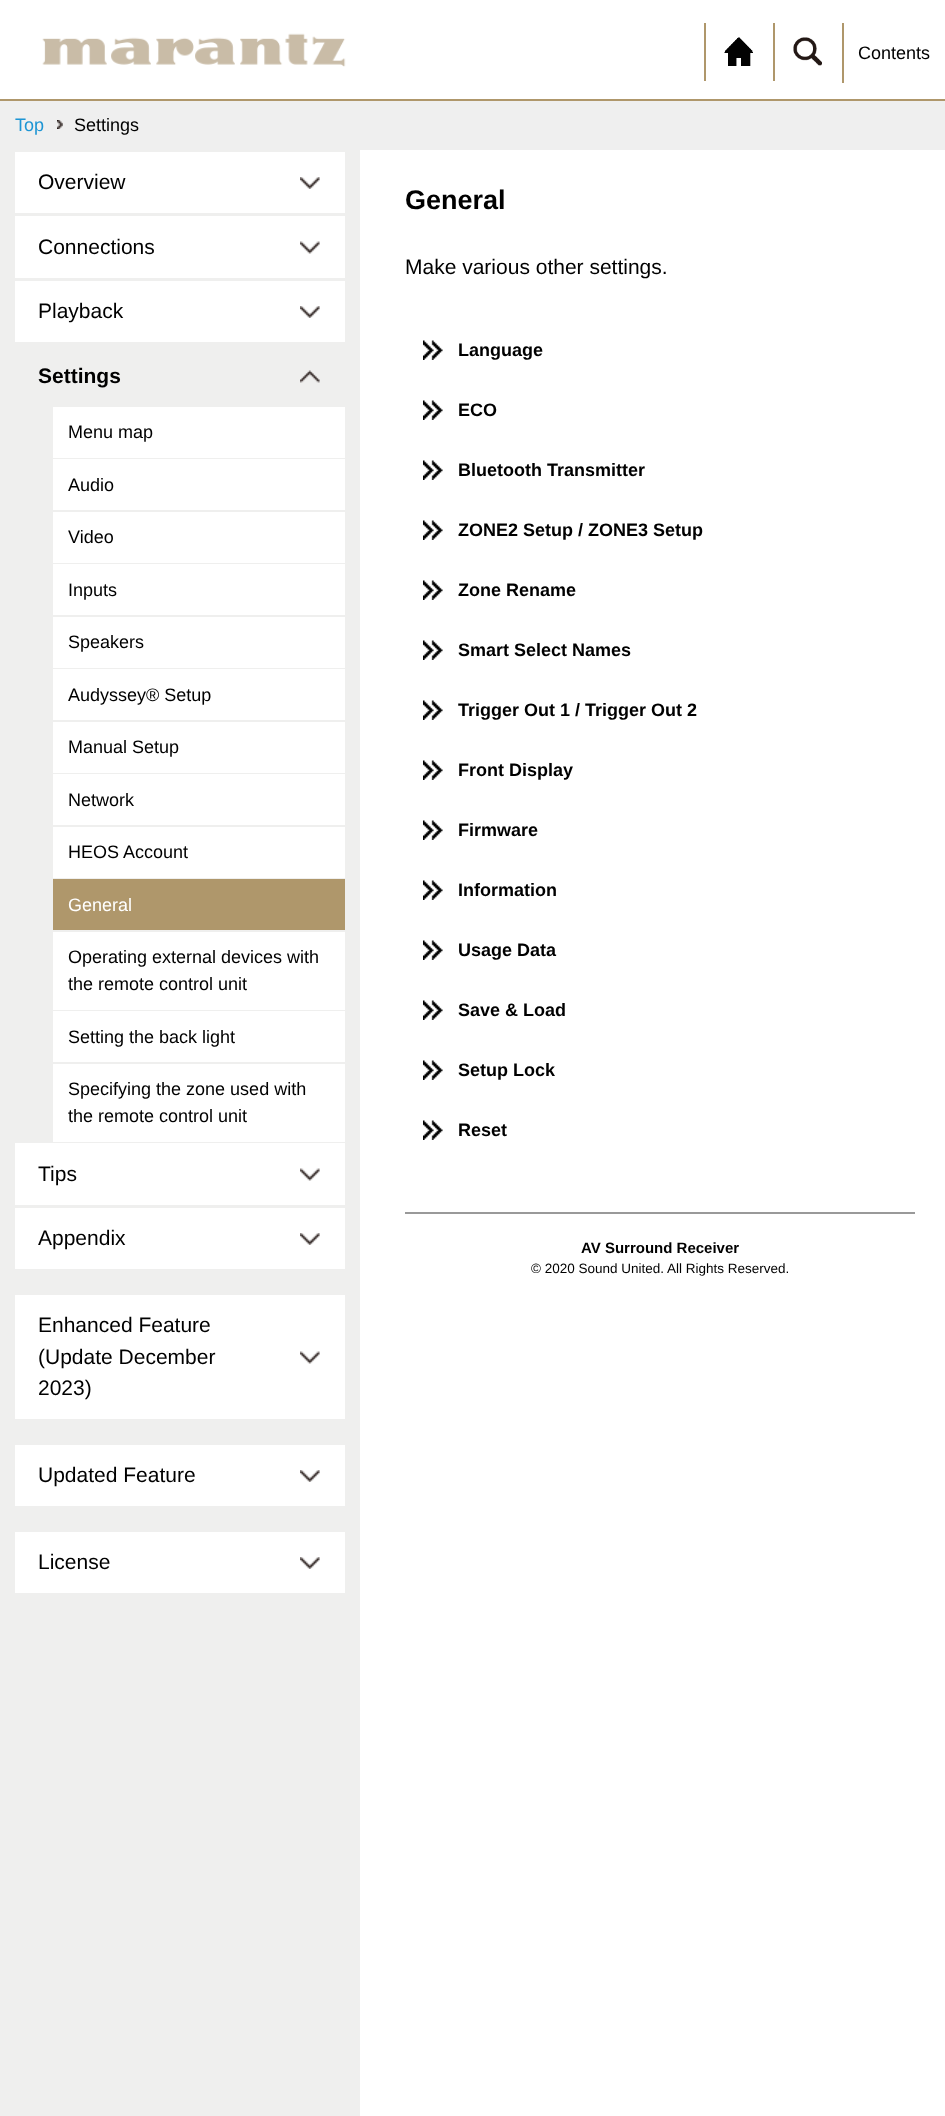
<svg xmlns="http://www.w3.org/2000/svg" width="945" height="2116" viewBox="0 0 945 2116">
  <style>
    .t1 { font: 18px Liberation Sans; fill: #000; }
    .t2 { font: 18px Liberation Sans; fill: #1d95d4; }
    .t3 { font: 21px Liberation Sans; fill: #000; }
    .t4 { font: bold 21px Liberation Sans; fill: #000; }
    .t5 { font: 18px Liberation Sans; fill: #fff; }
    .t6 { font: bold 27px Liberation Sans; fill: #000; }
    .t7 { font: bold 18px Liberation Sans; fill: #000; }
    .t8 { font: bold 15px Liberation Sans; fill: #000; }
    .t9 { font: 13.5px Liberation Sans; fill: #000; }
  </style>
  <rect width="100%" height="100%" fill="#fff"/>
  <rect x="0" y="150" width="360" height="1966" fill="#efefee"/>
  <image x="42" y="33" width="304" height="34" href="images/1.png"/>
  <image x="724" y="37" width="29" height="29" href="images/2.png"/>
  <rect x="704" y="23" width="2" height="58" fill="#af976b"/>
  <image x="793" y="37" width="29" height="29" href="images/3.png"/>
  <rect x="773" y="23" width="2" height="58" fill="#af976b"/>
  <rect x="842" y="23" width="2" height="60" fill="#af976b"/>
  <text x="858" y="59" class="t1">Contents</text>
  <rect x="0" y="101" width="945" height="49" fill="#efefef"/>
  <rect x="0" y="99" width="945" height="2" fill="#af976b"/>
  <image x="57" y="120" width="6" height="9" href="images/4.png"/>
  <text x="15" y="131" class="t2">Top</text>
  <text x="74" y="131" class="t1">Settings</text>
  <rect x="15" y="152" width="330" height="61" fill="#fff"/>
  <image x="300" y="177" width="20" height="12" href="images/5.png"/>
  <text x="38" y="189" class="t3">Overview</text>
  <rect x="15" y="216" width="330" height="62" fill="#fff"/>
  <image x="300" y="241" width="20" height="13" href="images/6.png"/>
  <text x="38" y="254" class="t3">Connections</text>
  <rect x="15" y="281" width="330" height="61" fill="#fff"/>
  <image x="300" y="306" width="20" height="12" href="images/5.png"/>
  <text x="38" y="318" class="t3">Playback</text>
  <image x="300" y="370" width="20" height="13" href="images/7.png"/>
  <text x="38" y="383" class="t4">Settings</text>
  <rect x="53" y="407" width="292" height="51" fill="#fff"/>
  <text x="68" y="438" class="t1">Menu map</text>
  <rect x="53" y="459" width="292" height="51" fill="#fff"/>
  <text x="68" y="491" class="t1">Audio</text>
  <rect x="53" y="512" width="292" height="51" fill="#fff"/>
  <text x="68" y="543" class="t1">Video</text>
  <rect x="53" y="564" width="292" height="51" fill="#fff"/>
  <text x="68" y="596" class="t1">Inputs</text>
  <rect x="53" y="617" width="292" height="51" fill="#fff"/>
  <text x="68" y="648" class="t1">Speakers</text>
  <rect x="53" y="669" width="292" height="51" fill="#fff"/>
  <text x="68" y="701" class="t1">Audyssey® Setup</text>
  <rect x="53" y="722" width="292" height="51" fill="#fff"/>
  <text x="68" y="753" class="t1">Manual Setup</text>
  <rect x="53" y="774" width="292" height="51" fill="#fff"/>
  <text x="68" y="806" class="t1">Network</text>
  <rect x="53" y="827" width="292" height="51" fill="#fff"/>
  <text x="68" y="858" class="t1">HEOS Account</text>
  <rect x="53" y="879" width="292" height="51" fill="#af976b"/>
  <text x="68" y="911" class="t5">General</text>
  <rect x="53" y="932" width="292" height="78" fill="#fff"/>
  <text x="68" y="963" class="t1">Operating external devices with</text>
  <text x="68" y="990" class="t1">the remote control unit</text>
  <rect x="53" y="1011" width="292" height="51" fill="#fff"/>
  <text x="68" y="1043" class="t1">Setting the back light</text>
  <rect x="53" y="1064" width="292" height="78" fill="#fff"/>
  <text x="68" y="1095" class="t1">Specifying the zone used with</text>
  <text x="68" y="1122" class="t1">the remote control unit</text>
  <rect x="15" y="1143" width="330" height="62" fill="#fff"/>
  <image x="300" y="1168" width="20" height="13" href="images/6.png"/>
  <text x="38" y="1181" class="t3">Tips</text>
  <rect x="15" y="1208" width="330" height="61" fill="#fff"/>
  <image x="300" y="1233" width="20" height="12" href="images/5.png"/>
  <text x="38" y="1245" class="t3">Appendix</text>
  <rect x="15" y="1295" width="330" height="124" fill="#fff"/>
  <image x="300" y="1351" width="20" height="13" href="images/6.png"/>
  <text x="38" y="1332" class="t3">Enhanced Feature</text>
  <text x="38" y="1364" class="t3">(Update December</text>
  <text x="38" y="1395" class="t3">2023)</text>
  <rect x="15" y="1445" width="330" height="61" fill="#fff"/>
  <image x="300" y="1470" width="20" height="12" href="images/5.png"/>
  <text x="38" y="1482" class="t3">Updated Feature</text>
  <rect x="15" y="1532" width="330" height="61" fill="#fff"/>
  <image x="300" y="1557" width="20" height="12" href="images/5.png"/>
  <text x="38" y="1569" class="t3">License</text>
  <text x="405" y="209" class="t6">General</text>
  <text x="405" y="274" class="t3">Make various other settings.</text>
  <image x="423" y="340" width="20" height="20" href="images/8.png"/>
  <text x="458" y="356" class="t7">Language</text>
  <image x="423" y="400" width="20" height="20" href="images/8.png"/>
  <text x="458" y="416" class="t7">ECO</text>
  <image x="423" y="460" width="20" height="20" href="images/8.png"/>
  <text x="458" y="476" class="t7">Bluetooth Transmitter</text>
  <image x="423" y="520" width="20" height="20" href="images/8.png"/>
  <text x="458" y="536" class="t7">ZONE2 Setup / ZONE3 Setup</text>
  <image x="423" y="580" width="20" height="20" href="images/8.png"/>
  <text x="458" y="596" class="t7">Zone Rename</text>
  <image x="423" y="640" width="20" height="20" href="images/8.png"/>
  <text x="458" y="656" class="t7">Smart Select Names</text>
  <image x="423" y="700" width="20" height="20" href="images/8.png"/>
  <text x="458" y="716" class="t7">Trigger Out 1 / Trigger Out 2</text>
  <image x="423" y="760" width="20" height="20" href="images/8.png"/>
  <text x="458" y="776" class="t7">Front Display</text>
  <image x="423" y="820" width="20" height="20" href="images/8.png"/>
  <text x="458" y="836" class="t7">Firmware</text>
  <image x="423" y="880" width="20" height="20" href="images/8.png"/>
  <text x="458" y="896" class="t7">Information</text>
  <image x="423" y="940" width="20" height="20" href="images/8.png"/>
  <text x="458" y="956" class="t7">Usage Data</text>
  <image x="423" y="1000" width="20" height="20" href="images/8.png"/>
  <text x="458" y="1016" class="t7">Save &amp; Load</text>
  <image x="423" y="1060" width="20" height="20" href="images/8.png"/>
  <text x="458" y="1076" class="t7">Setup Lock</text>
  <image x="423" y="1120" width="20" height="20" href="images/8.png"/>
  <text x="458" y="1136" class="t7">Reset</text>
  <rect x="405" y="1212" width="510" height="2" fill="#999"/>
  <text x="581" y="1253" class="t8">AV Surround Receiver</text>
  <text x="531" y="1273" class="t9">© 2020 Sound United. All Rights Reserved.</text>
</svg>
